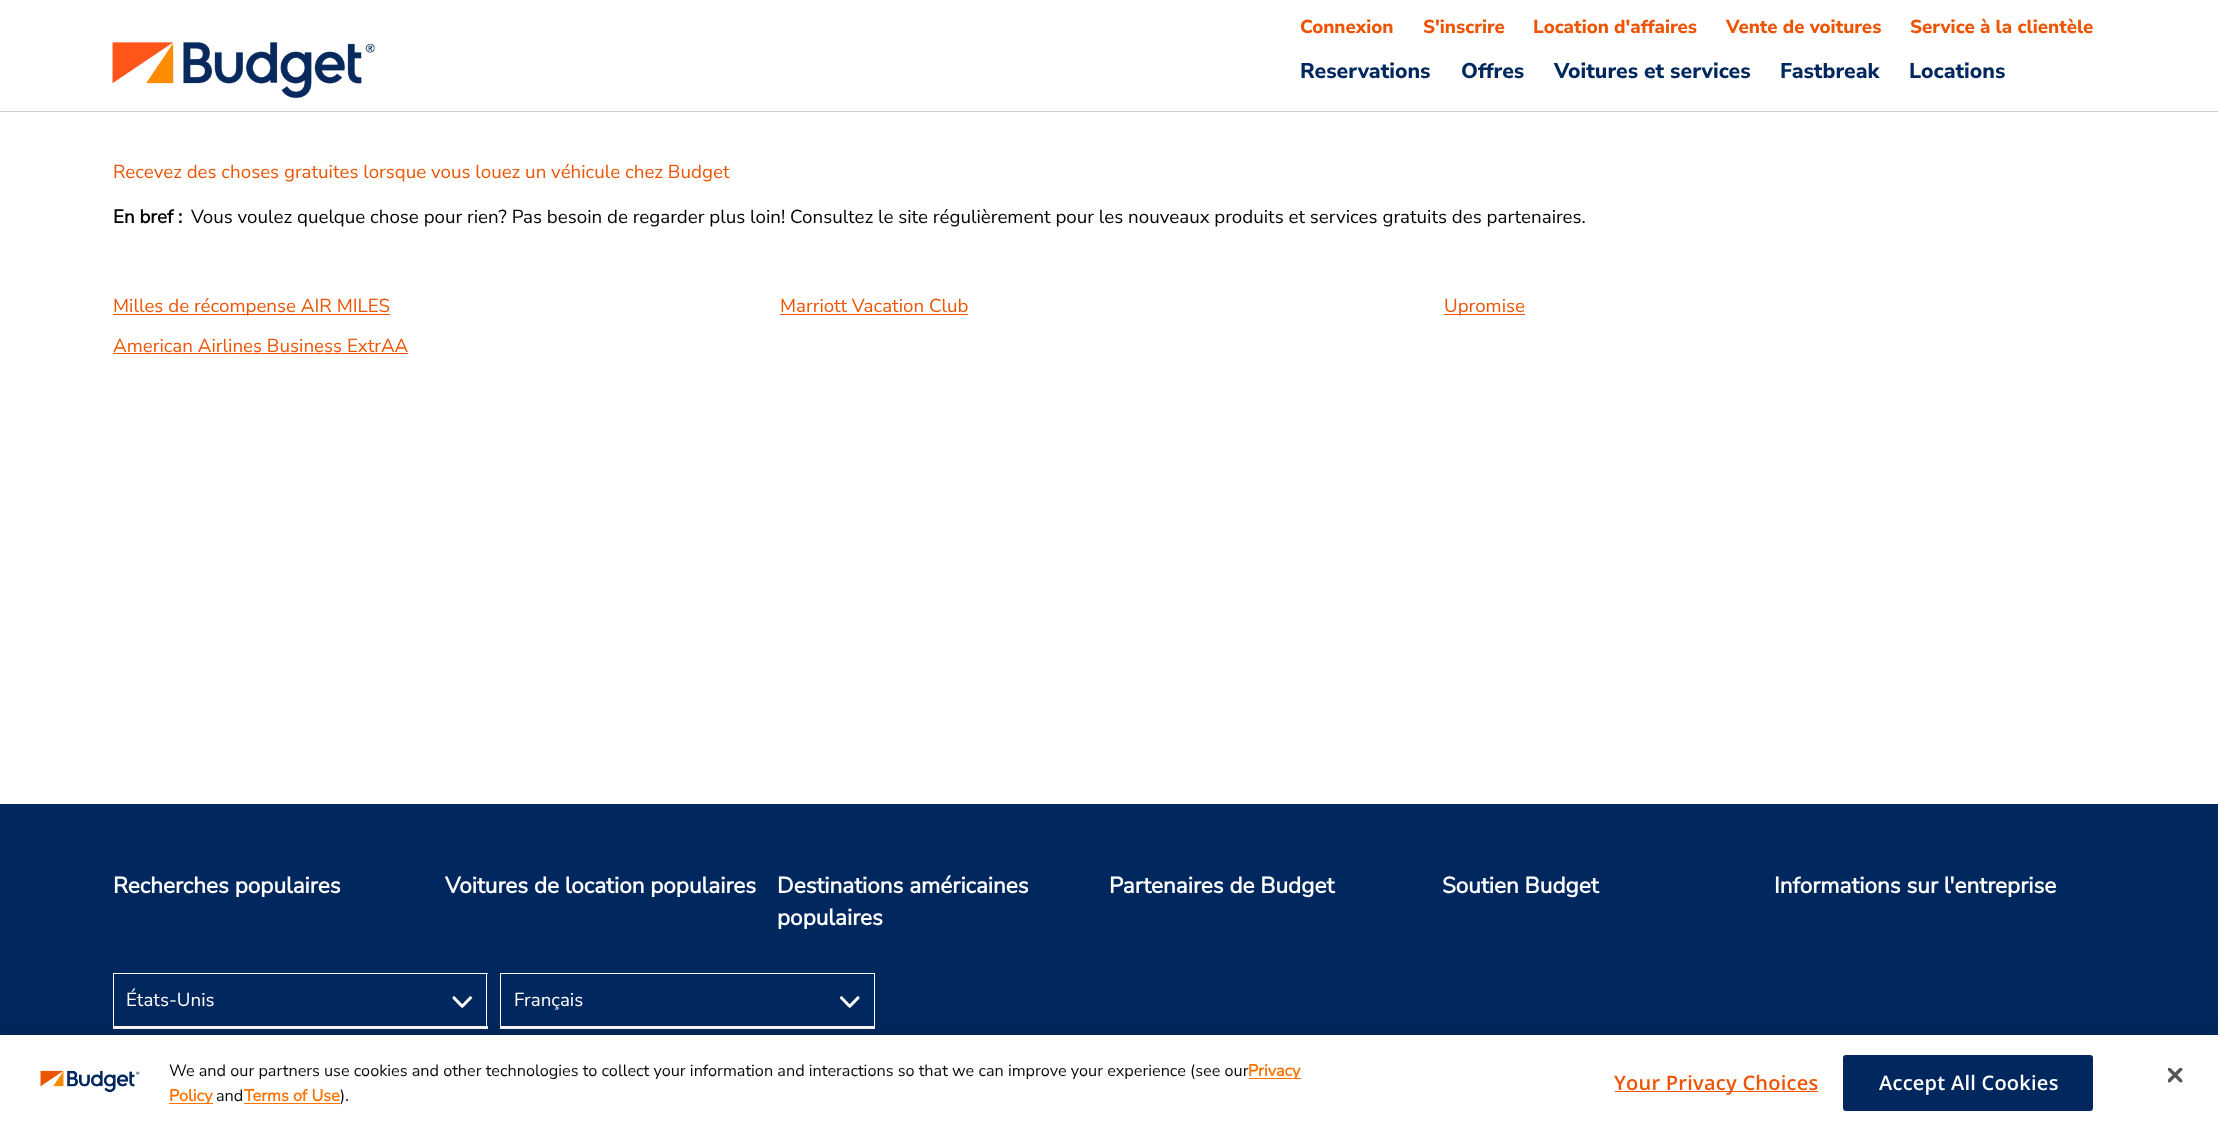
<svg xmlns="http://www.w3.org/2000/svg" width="2218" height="1122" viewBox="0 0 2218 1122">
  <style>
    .t1 { font: 800 18.75px Nunito Sans; fill: #ed5505; }
    .t2 { font: 800 21.25px Nunito Sans; fill: #00285f; }
    .t3 { font: 18.75px Nunito Sans; fill: #ed5505; }
    .t4 { font: bold 18.75px Nunito Sans; fill: #000; }
    .t5 { font: 18.75px Nunito Sans; fill: #000; }
    .t6 { font: bold 22.5px Nunito Sans; fill: #fff; }
    .t7 { font: 18.75px Nunito Sans; fill: #fff; }
    .t8 { font: 16.25px Nunito Sans; fill: #0a0a0a; }
    .t9 { font: bold 16.25px Nunito Sans; fill: #ff7300; }
    .t10 { font: 600 20px Open Sans; letter-spacing: 0.25px; fill: #ed5505; }
    .t11 { font: 600 20px Open Sans; letter-spacing: 0.25px; fill: #fff; }
  </style>
  <rect width="100%" height="100%" fill="#fff"/>
  <rect x="0" y="111" width="2218" height="1" fill="#ccc"/>
  <image x="112" y="42" width="263" height="56" href="images/1.png"/>
  <text x="1300" y="33" class="t1">Connexion</text>
  <text x="1423" y="33" class="t1">S'inscrire</text>
  <text x="1533" y="33" class="t1">Location d'affaires</text>
  <text x="1726" y="33" class="t1">Vente de voitures</text>
  <text x="1910" y="33" class="t1">Service à la clientèle</text>
  <text x="1300" y="78" class="t2">Reservations</text>
  <text x="1461" y="78" class="t2">Offres</text>
  <text x="1554" y="78" class="t2">Voitures et services</text>
  <text x="1780" y="78" class="t2">Fastbreak</text>
  <text x="1909" y="78" class="t2">Locations</text>
  <text x="113" y="178" class="t3">Recevez des choses gratuites lorsque vous louez un véhicule chez Budget</text>
  <text x="113" y="223" class="t4">En bref :</text>
  <text x="191" y="223" class="t5">Vous voulez quelque chose pour rien? Pas besoin de regarder plus loin! Consultez le site régulièrement pour les nouveaux produits et services gratuits des partenaires.</text>
  <rect x="113" y="314" width="277" height="1" fill="#ed5505"/>
  <text x="113" y="312" class="t3">Milles de récompense AIR MILES</text>
  <text x="113" y="352" class="t3">American Airlines Business ExtrAA</text>
  <rect x="113" y="353" width="295" height="1" fill="#ed5505"/>
  <text x="780" y="312" class="t3">Marriott Vacation Club</text>
  <rect x="780" y="314" width="188" height="1" fill="#ed5505"/>
  <rect x="1444" y="314" width="81" height="1" fill="#ed5505"/>
  <text x="1444" y="312" class="t3">Upromise</text>
  <rect x="0" y="804" width="2218" height="231" fill="#00285f"/>
  <text x="113" y="893" class="t6">Recherches populaires</text>
  <text x="445" y="893" class="t6">Voitures de location populaires</text>
  <text x="777" y="893" class="t6">Destinations américaines</text>
  <text x="777" y="925" class="t6">populaires</text>
  <text x="1109" y="893" class="t6">Partenaires de Budget</text>
  <text x="1442" y="893" class="t6">Soutien Budget</text>
  <text x="1774" y="893" class="t6">Informations sur l'entreprise</text>
  <rect x="113" y="973" width="375" height="1" fill="#fff"/>
  <rect x="486" y="973" width="1" height="56" fill="#fff"/>
  <rect x="113" y="1026" width="375" height="3" fill="#fff"/>
  <rect x="113" y="973" width="1" height="56" fill="#fff"/>
  <text x="126" y="1006" class="t7">États-Unis</text>
  <image x="452" y="996" width="21" height="12" href="images/2.png"/>
  <rect x="500" y="973" width="375" height="1" fill="#fff"/>
  <rect x="874" y="973" width="1" height="56" fill="#fff"/>
  <rect x="500" y="1026" width="375" height="3" fill="#fff"/>
  <rect x="500" y="973" width="1" height="56" fill="#fff"/>
  <text x="514" y="1006" class="t7">Français</text>
  <image x="840" y="996" width="20" height="12" href="images/3.png"/>
  <rect x="0" y="1035" width="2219" height="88" fill="#00000033" filter="blur(11px)"/>
  <rect x="0" y="1035" width="2218" height="87" fill="#fff"/>
  <image x="40" y="1070" width="100" height="23" href="images/4.png"/>
  <text x="169" y="1076" class="t8">We and our partners use cookies and other technologies to collect your information and interactions so that we can improve your experience (see our</text>
  <rect x="1249" y="1078" width="52" height="1" fill="#ff7300"/>
  <text x="1248" y="1076" class="t9">Privacy</text>
  <rect x="169" y="1103" width="44" height="1" fill="#ff7300"/>
  <text x="169" y="1101" class="t9">Policy</text>
  <text x="216" y="1101" class="t8">and</text>
  <text x="244" y="1101" class="t9">Terms of Use</text>
  <rect x="244" y="1103" width="96" height="1" fill="#ff7300"/>
  <text x="340" y="1101" class="t8">).</text>
  <rect x="1615" y="1091" width="203" height="1" fill="#ed5505"/>
  <text x="1614" y="1090" class="t10">Your Privacy Choices</text>
  <rect x="1843.5" y="1055.5" width="249" height="55" rx="2" fill="#00285f" stroke="#00285f"/>
  <text x="1879" y="1090" class="t11">Accept All Cookies</text>
  <image x="2168" y="1068" width="15" height="15" href="images/5.png"/>
</svg>
